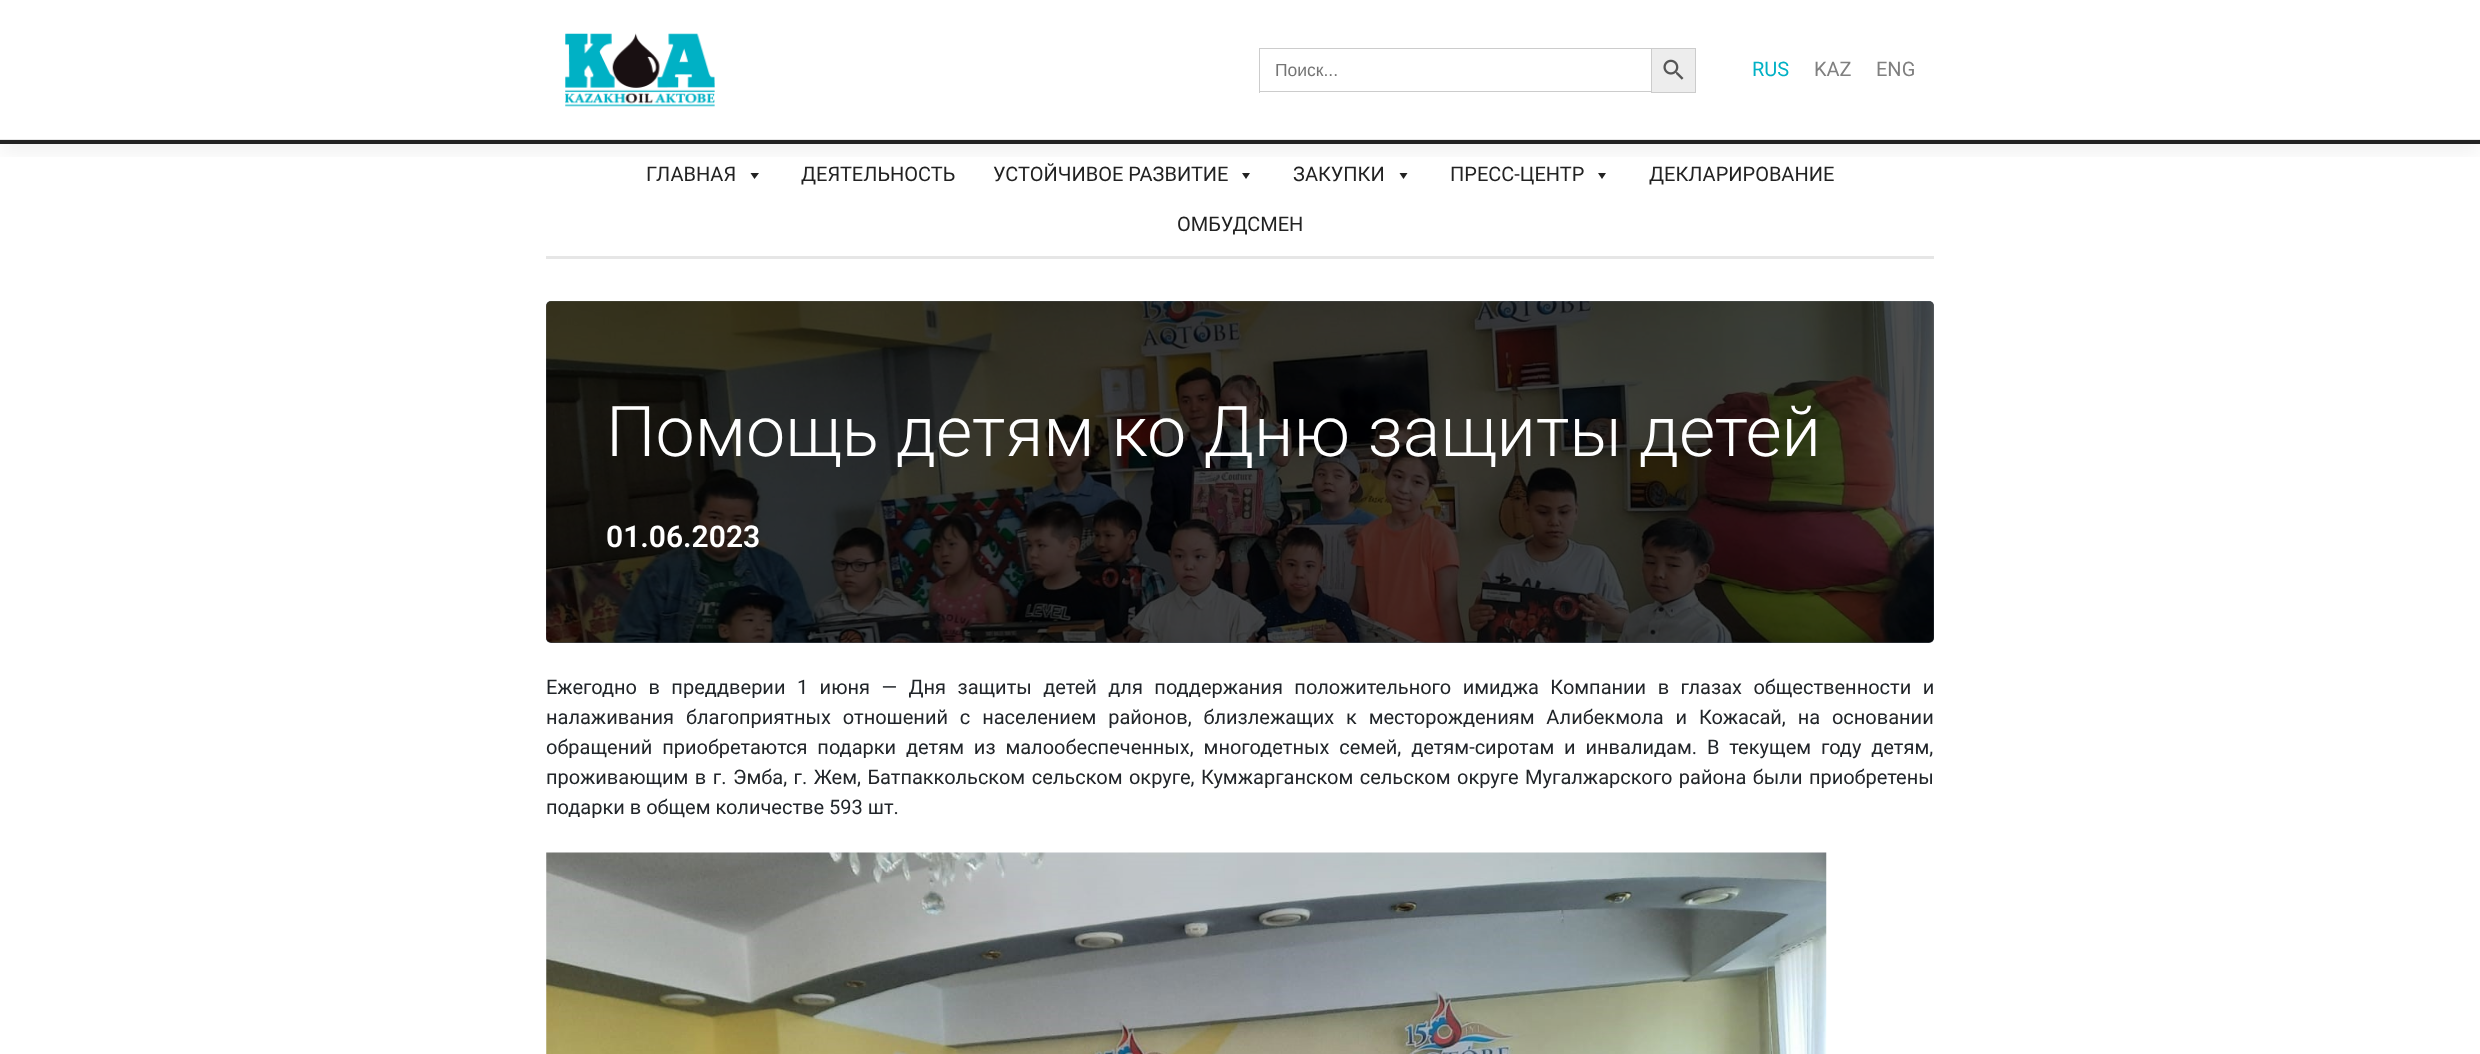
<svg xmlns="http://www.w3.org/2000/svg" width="2480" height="1054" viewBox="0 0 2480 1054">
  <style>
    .t1 { font: 17.5px Liberation Sans; fill: #757575; }
    .t2 { font: 20px Roboto; fill: #00b1c5; }
    .t3 { font: 20px Roboto; fill: #808080; }
    .t4 { font: 20px Roboto; fill: #222; }
    .t5 { font: 300 70px Roboto; fill: #fff; }
    .t6 { font: 600 30px Roboto; fill: #fff; }
    .t7 { font: 20px Roboto; fill: #212529; }
  </style>
  <defs>
    <clipPath id="clip1"><rect x="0" y="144" width="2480" height="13"/></clipPath>
  </defs>
  <rect width="100%" height="100%" fill="#fff"/>
  <g clip-path="url(#clip1)">
    <rect x="0" y="10" width="2480" height="144" fill="#0000000d" filter="blur(10px)"/>
  </g>
  <rect x="0" y="139" width="2480" height="1" fill="#e6e6e6"/>
  <rect x="0" y="140" width="2480" height="4" fill="#222"/>
  <image x="565" y="33" width="150" height="74" href="images/1.png"/>
  <rect x="1259" y="48" width="392" height="1" fill="#ccc"/>
  <rect x="1259" y="91" width="392" height="1" fill="#ccc"/>
  <rect x="1259" y="48" width="1" height="45" fill="#ccc"/>
  <text x="1275" y="76" class="t1">Поиск...</text>
  <rect x="1651.5" y="48.5" width="44" height="44" fill="#ededed" stroke="#ccc"/>
  <image x="1663" y="59" width="21" height="21" href="images/2.png"/>
  <text x="1752" y="76" class="t2">RUS</text>
  <text x="1814" y="76" class="t3">KAZ</text>
  <text x="1876" y="76" class="t3">ENG</text>
  <text x="646" y="181" class="t4">ГЛАВНАЯ</text>
  <path d="M759 173L754.5 179L750.5 173Z" fill="#222"/>
  <text x="801" y="181" class="t4">ДЕЯТЕЛЬНОСТЬ</text>
  <text x="993" y="181" class="t4">УСТОЙЧИВОЕ РАЗВИТИЕ</text>
  <path d="M1250 173L1246 179L1242 173Z" fill="#222"/>
  <text x="1293" y="181" class="t4">ЗАКУПКИ</text>
  <path d="M1407.5 173L1403.5 179L1399.5 173Z" fill="#222"/>
  <text x="1450" y="181" class="t4">ПРЕСС-ЦЕНТР</text>
  <path d="M1606 173L1602 179L1598 173Z" fill="#222"/>
  <text x="1649" y="181" class="t4">ДЕКЛАРИРОВАНИЕ</text>
  <text x="1177" y="231" class="t4">ОМБУДСМЕН</text>
  <rect x="546" y="256" width="1388" height="3" fill="#e6e6e6"/>
  <rect x="546" y="301" width="1388" height="342" rx="5" fill="#343a40"/>
  <image x="546" y="301" width="1388" height="342" href="images/3.png"/>
  <text x="606" y="456" class="t5">Помощь детям ко Дню защиты детей</text>
  <text x="606" y="547" class="t6">01.06.2023</text>
  <text x="546" y="694" word-spacing="6.5" class="t7">Ежегодно в преддверии 1 июня — Дня защиты детей для поддержания положительного имиджа Компании в глазах общественности и</text>
  <text x="546" y="724" word-spacing="6.9" class="t7">налаживания благоприятных отношений с населением районов, близлежащих к месторождениям Алибекмола и Кожасай, на основании</text>
  <text x="546" y="754" word-spacing="4.9" class="t7">обращений приобретаются подарки детям из малообеспеченных, многодетных семей, детям-сиротам и инвалидам. В текущем году детям,</text>
  <text x="546" y="784" word-spacing="1.5" class="t7">проживающим в г. Эмба, г. Жем, Батпаккольском сельском округе, Кумжарганском сельском округе Мугалжарского района были приобретены</text>
  <text x="546" y="814" class="t7">подарки в общем количестве 593 шт.</text>
  <image x="546" y="852" width="1281" height="202" href="images/4.png"/>
</svg>
